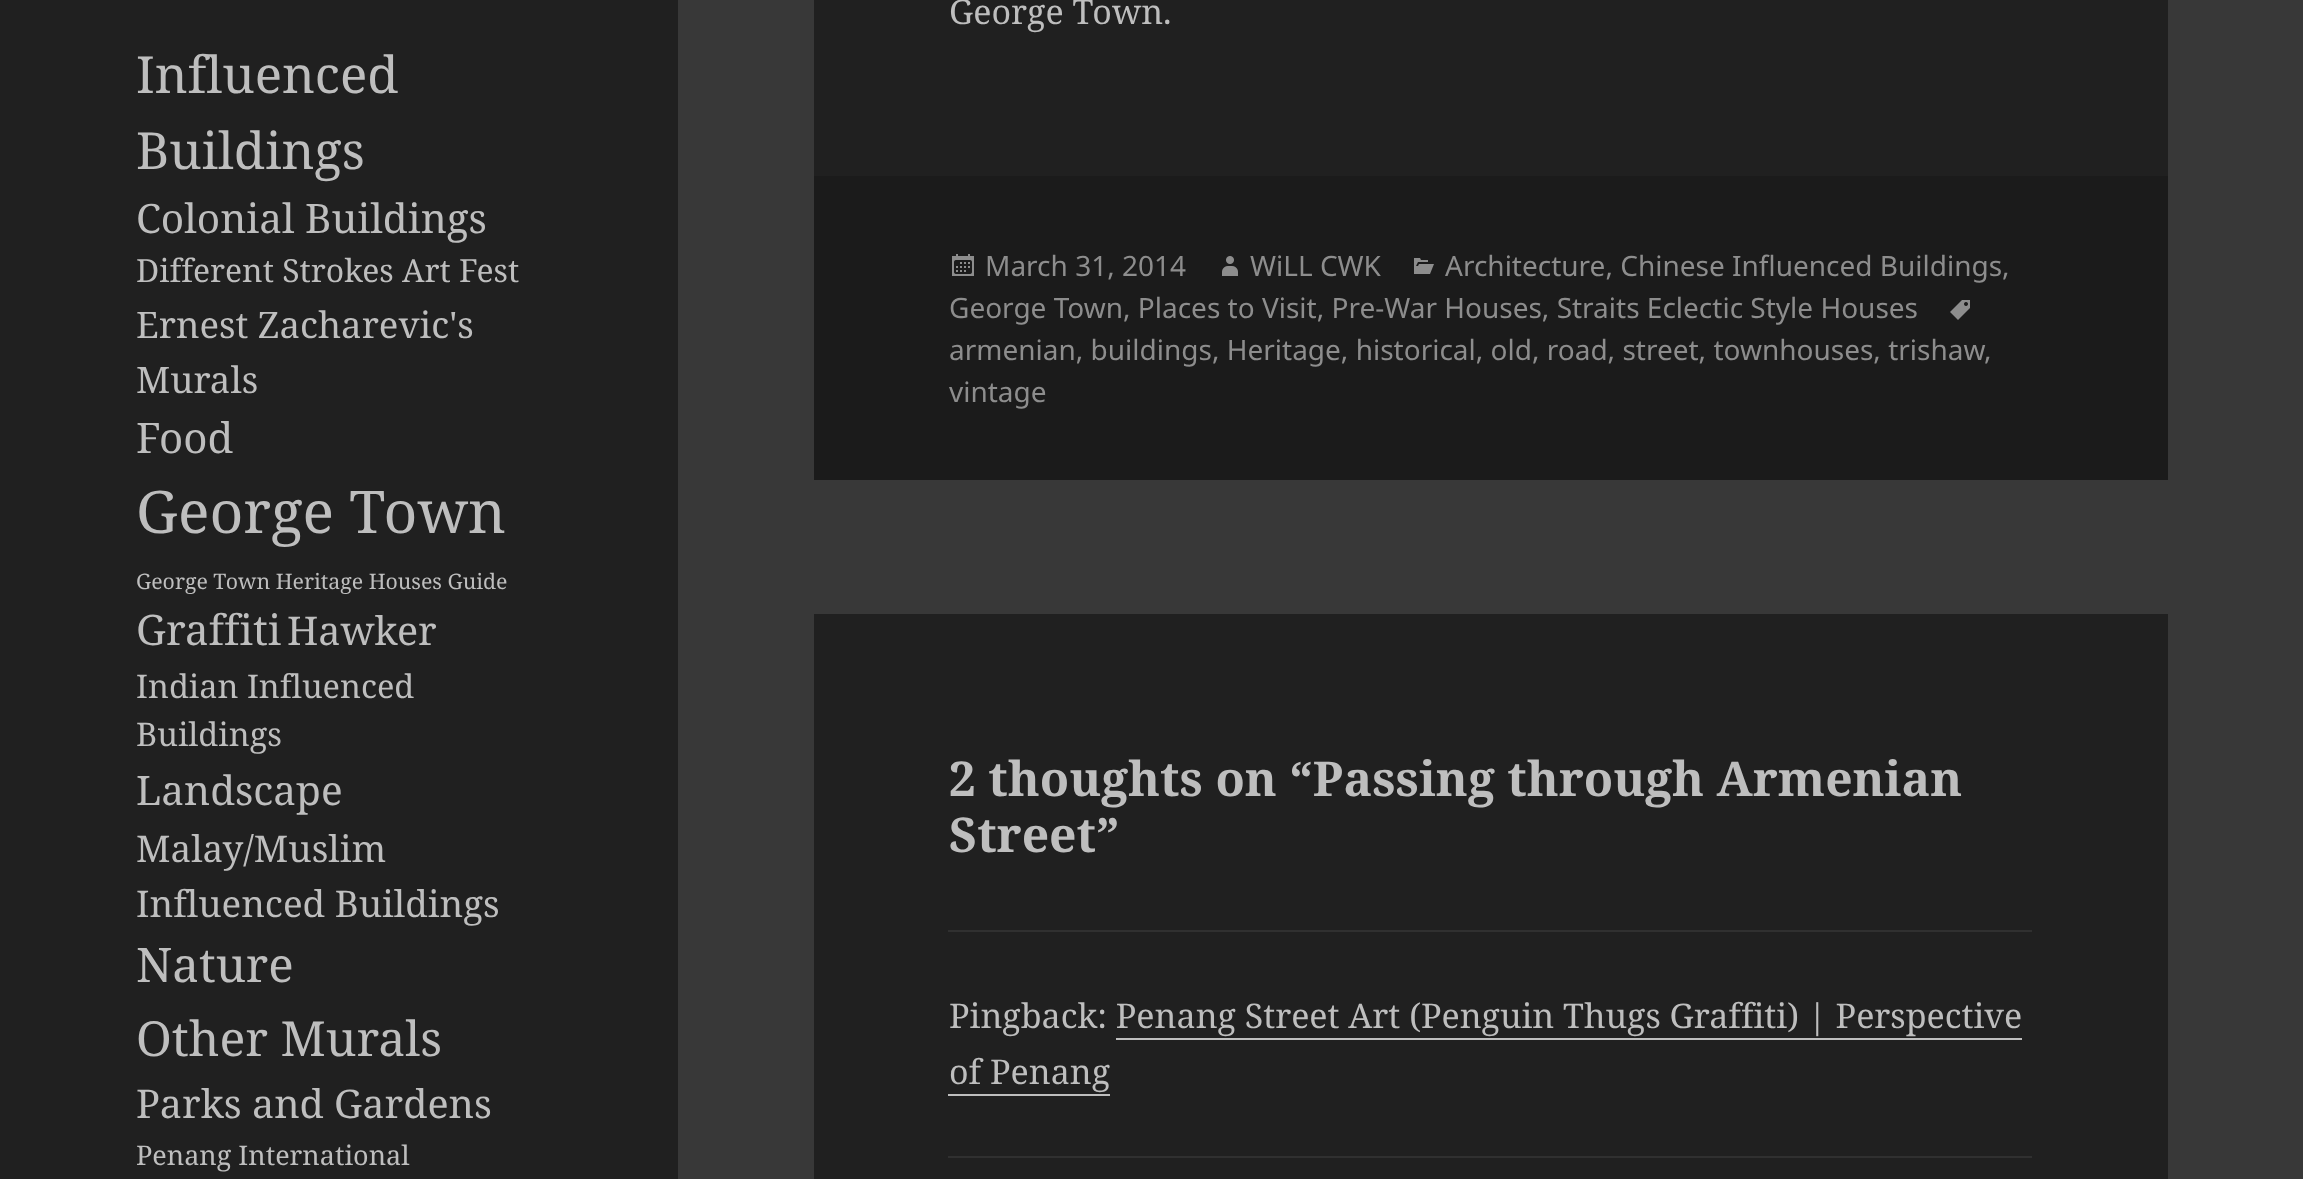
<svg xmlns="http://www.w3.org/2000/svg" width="2303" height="1179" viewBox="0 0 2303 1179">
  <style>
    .t1 { font: 51px Noto Serif; fill: #bebebe; }
    .t2 { font: 40.5px Noto Serif; fill: #bebebe; }
    .t3 { font: 31.9px Noto Serif; fill: #bebebe; }
    .t4 { font: 36.5px Noto Serif; fill: #bebebe; }
    .t5 { font: 42px Noto Serif; fill: #bebebe; }
    .t6 { font: 58.75px Noto Serif; fill: #bebebe; }
    .t7 { font: 21.3px Noto Serif; fill: #bebebe; }
    .t8 { font: 39.5px Noto Serif; fill: #bebebe; }
    .t9 { font: 32.5px Noto Serif; fill: #bebebe; }
    .t10 { font: 36.75px Noto Serif; fill: #bebebe; }
    .t11 { font: 47.5px Noto Serif; fill: #bebebe; }
    .t12 { font: 48.25px Noto Serif; fill: #bebebe; }
    .t13 { font: 27px Noto Serif; fill: #bebebe; }
    .t14 { font: 34px Noto Serif; fill: #bebebe; }
    .t15 { font: 28px Noto Sans; fill: #8d8d8d; }
    .t16 { font: bold 48px Noto Serif; fill: #bebebe; }
  </style>
  <rect width="100%" height="100%" fill="#383838"/>
  <rect x="0" y="0" width="678" height="1179" fill="#202020"/>
  <text x="136" y="93" class="t1">Influenced</text>
  <text x="136" y="169" class="t1">Buildings</text>
  <text x="136" y="233" class="t2">Colonial Buildings</text>
  <text x="136" y="282" class="t3">Different Strokes Art Fest</text>
  <text x="136" y="338" class="t4">Ernest Zacharevic's</text>
  <text x="136" y="393" class="t4">Murals</text>
  <text x="136" y="453" class="t5">Food</text>
  <text x="136" y="533" class="t6">George Town</text>
  <text x="136" y="589" class="t7">George Town Heritage Houses Guide</text>
  <text x="136" y="645" class="t5">Graffiti</text>
  <text x="287" y="645" class="t8">Hawker</text>
  <text x="136" y="698" class="t9">Indian Influenced</text>
  <text x="136" y="746" class="t9">Buildings</text>
  <text x="136" y="805" class="t2">Landscape</text>
  <text x="136" y="862" class="t10">Malay/Muslim</text>
  <text x="136" y="917" class="t10">Influenced Buildings</text>
  <text x="136" y="982" class="t11">Nature</text>
  <text x="136" y="1056" class="t12">Other Murals</text>
  <text x="136" y="1118" class="t8">Parks and Gardens</text>
  <text x="136" y="1165" class="t13">Penang International</text>
  <rect x="814" y="0" width="1354" height="176" fill="#202020"/>
  <text x="949" y="24" class="t14">George Town.</text>
  <rect x="814" y="176" width="1354" height="304" fill="#1b1b1b"/>
  <image x="1414" y="258" width="20" height="16" href="images/1.png"/>
  <text x="1445" y="276" class="t15">Architecture, Chinese Influenced Buildings,</text>
  <text x="949" y="318" class="t15">George Town, Places to Visit, Pre-War Houses, Straits Eclectic Style Houses</text>
  <image x="952" y="254" width="22" height="22" href="images/2.png"/>
  <text x="985" y="276" class="t15">March 31, 2014</text>
  <image x="1222" y="256" width="16" height="20" href="images/3.png"/>
  <text x="1250" y="276" class="t15">WiLL CWK</text>
  <image x="1950" y="300" width="20" height="20" href="images/4.png"/>
  <text x="949" y="360" class="t15">armenian, buildings, Heritage, historical, old, road, street, townhouses, trishaw</text>
  <text x="1984" y="360" class="t15">,</text>
  <text x="949" y="402" class="t15">vintage</text>
  <rect x="814" y="614" width="1354" height="565" fill="#202020"/>
  <text x="949" y="796" class="t16">2 thoughts on “Passing through Armenian</text>
  <text x="949" y="852" class="t16">Street”</text>
  <rect x="948" y="930" width="1084" height="2" fill="#303030"/>
  <text x="949" y="1028" class="t14">Pingback: Penang Street Art (Penguin Thugs Graffiti) | Perspective</text>
  <text x="949" y="1084" class="t14">of Penang</text>
  <rect x="1116" y="1038" width="906" height="2" fill="#bebebe"/>
  <rect x="948" y="1094" width="162" height="2" fill="#bebebe"/>
  <rect x="948" y="1156" width="1084" height="2" fill="#303030"/>
</svg>
